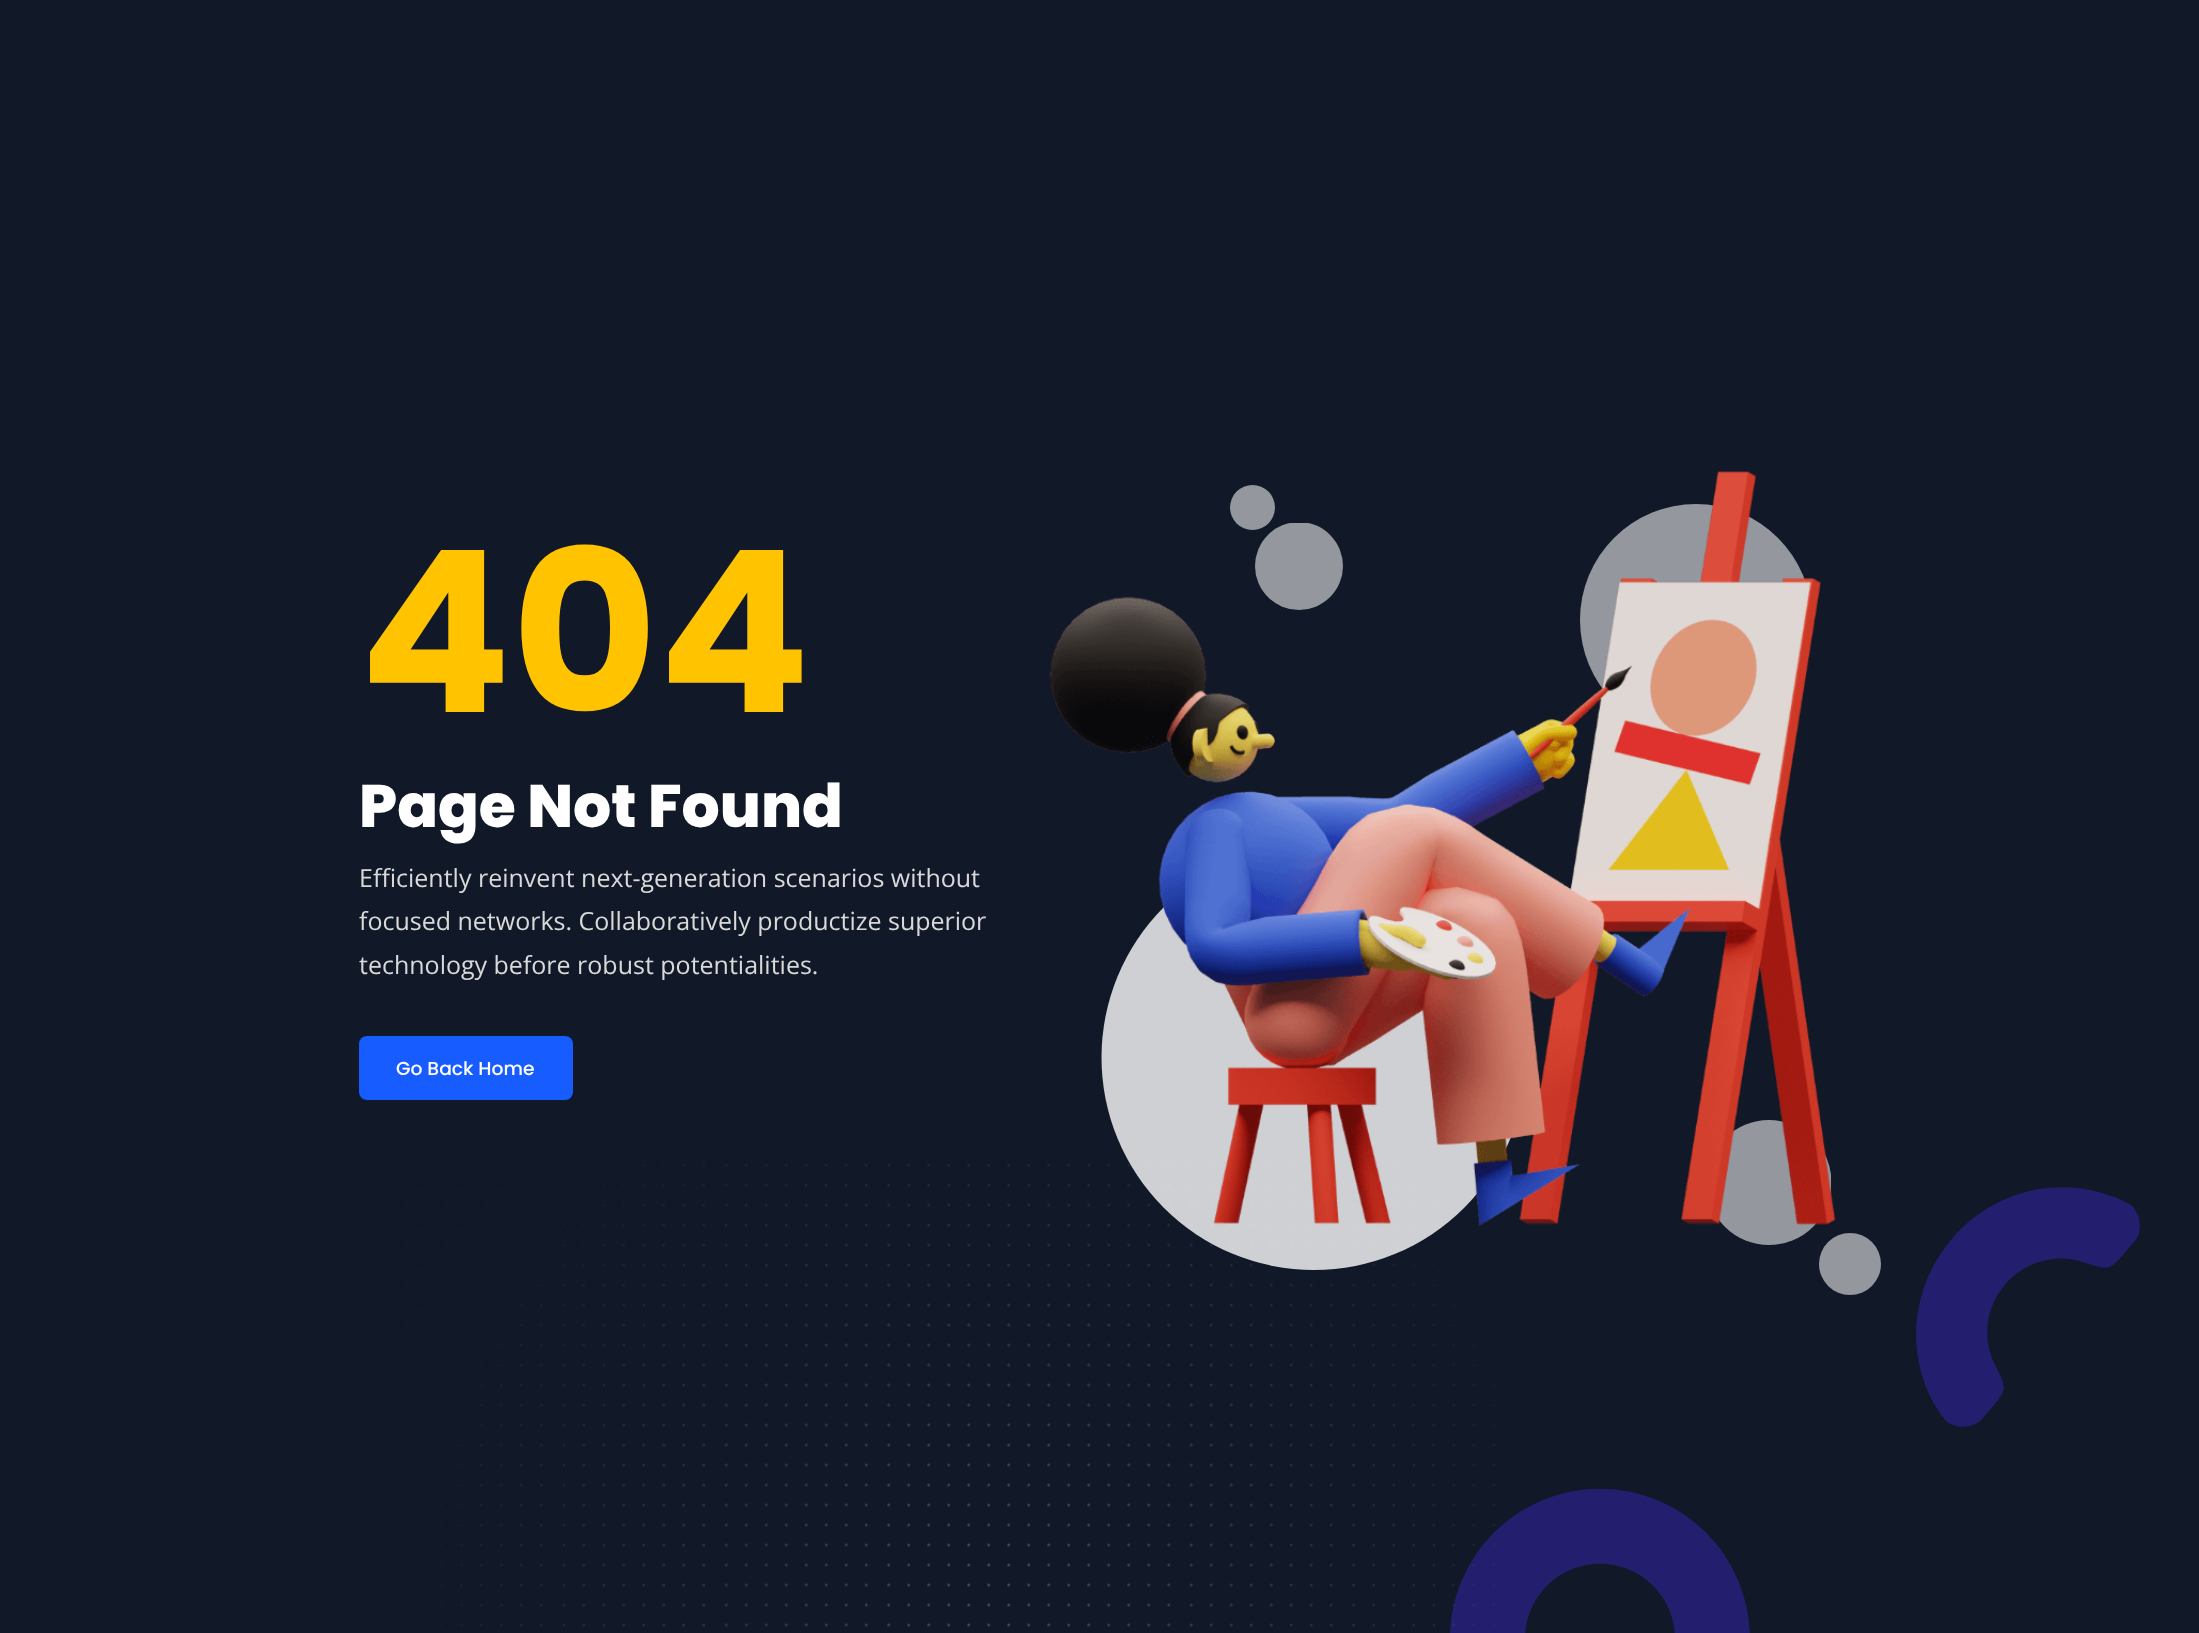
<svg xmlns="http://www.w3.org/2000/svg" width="2199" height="1633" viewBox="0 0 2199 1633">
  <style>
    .t1 { font: bold 225px Poppins; fill: #ffc300; }
    .t2 { font: 800 60px Poppins; fill: #fff; }
    .t3 { font: 25px Open Sans; fill: #d9d9d9; }
    .t4 { font: 500 18.75px Poppins; fill: #fff; }
  </style>
  <defs>
    <clipPath id="clip1"><rect x="1255" y="523" width="88" height="87"/></clipPath>
    <clipPath id="clip2"><rect x="1706" y="1120" width="125" height="125"/></clipPath>
  </defs>
  <rect width="100%" height="100%" fill="#111827"/>
  <image x="400" y="1164" width="1740" height="469" href="images/1.png"/>
  <text x="359" y="712" class="t1">404</text>
  <text x="359" y="827" class="t2">Page Not Found</text>
  <text x="359" y="887" class="t3">Efficiently reinvent next-generation scenarios without</text>
  <text x="359" y="930" class="t3">focused networks. Collaboratively productize superior</text>
  <text x="359" y="974" class="t3">technology before robust potentialities.</text>
  <rect x="359" y="1036" width="214" height="64" rx="8" fill="#175cff"/>
  <text x="396" y="1075" class="t4">Go Back Home</text>
  <circle cx="1252.5" cy="507.5" r="22.5" fill="#94979e"/>
  <g clip-path="url(#clip1)">
    <circle cx="1299" cy="566" r="44" fill="#94979e"/>
  </g>
  <circle cx="1696" cy="620" r="116" fill="#94979e"/>
  <circle cx="1314" cy="1057.5" r="212.5" fill="#ffffffcc"/>
  <g clip-path="url(#clip2)">
    <circle cx="1769" cy="1182.5" r="62.5" fill="#94979e"/>
  </g>
  <image x="1049" y="471" width="787" height="755" href="images/2.png"/>
  <circle cx="1850" cy="1264" r="31" fill="#94979e"/>
</svg>
